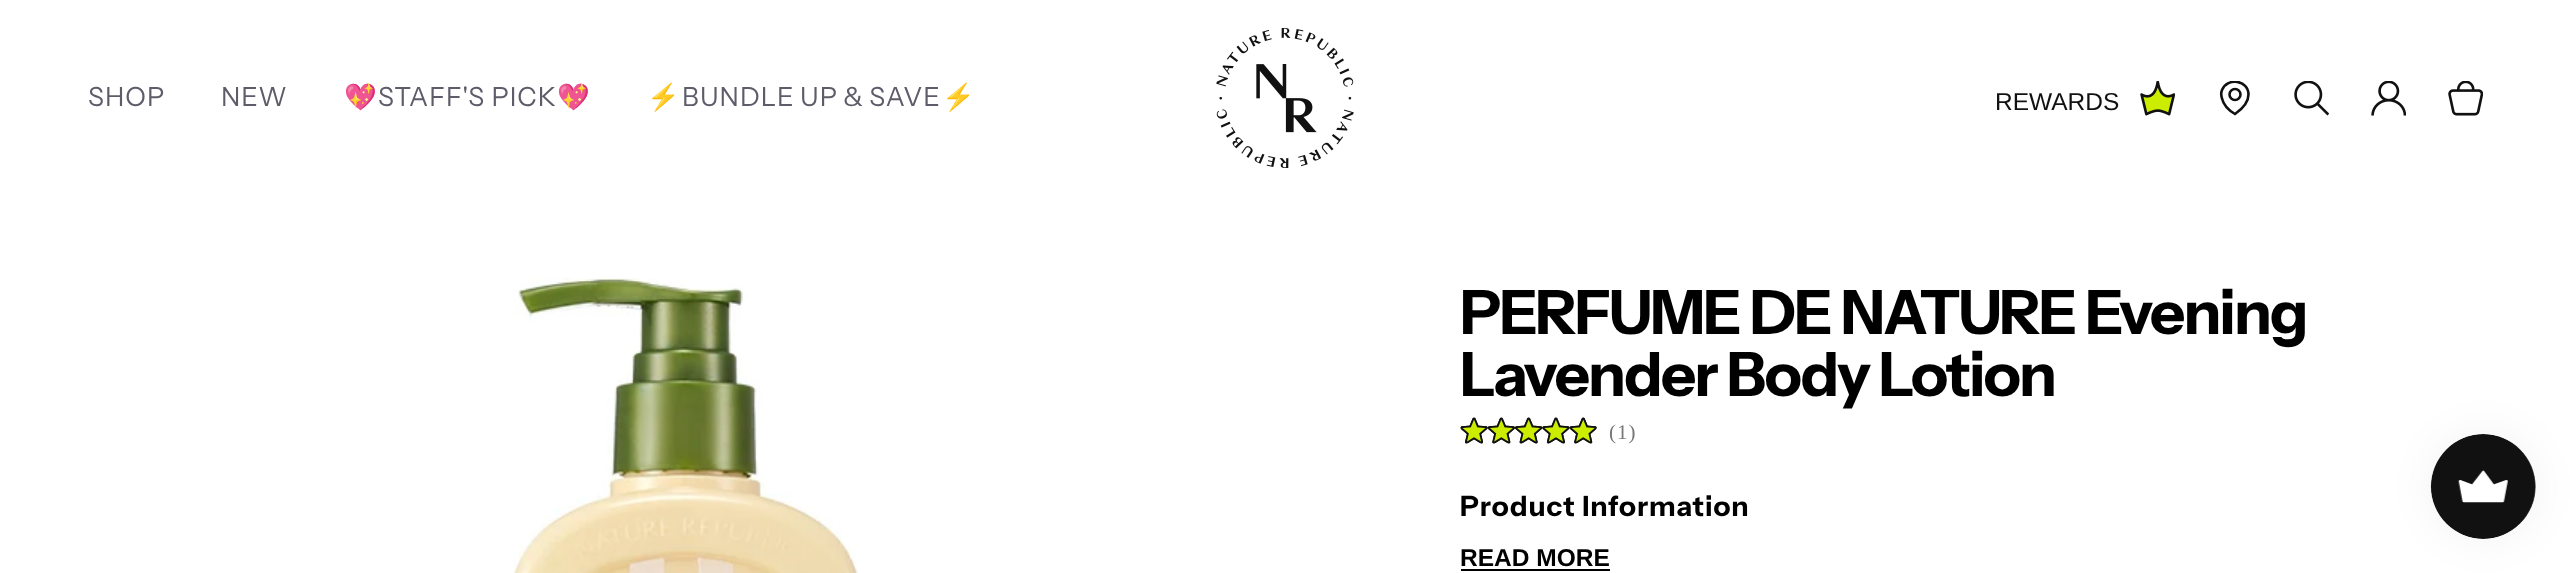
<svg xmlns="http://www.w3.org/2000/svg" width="2570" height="573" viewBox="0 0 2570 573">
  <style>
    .t1 { font: 26.25px Instrument Sans; letter-spacing: 1px; fill: #5d5c69; }
    .t2 { font: 26.25px Noto Color Emoji; letter-spacing: 1px; fill: #5d5c69; }
    .t3 { font: 24.5px Liberation Sans; fill: #111; }
    .t4 { font: bold 61.25px Instrument Sans; letter-spacing: -1.75px; fill: #000; }
    .t5 { font: 21px Liberation Serif; letter-spacing: 1px; fill: #777; }
    .t6 { font: bold 28px Instrument Sans; letter-spacing: 1px; fill: #000; }
    .t7 { font: bold 24.5px Liberation Sans; fill: #000; }
  </style>
  <defs>
    <clipPath id="clip1"><rect x="2217" y="81" width="35" height="35"/></clipPath>
  </defs>
  <rect width="100%" height="100%" fill="#fff"/>
  <text x="88" y="106" class="t1">SHOP</text>
  <text x="221" y="106" class="t1">NEW</text>
  <text x="344" y="106" class="t2">💖</text>
  <text x="378" y="106" class="t1">STAFF'S PICK</text>
  <text x="557" y="106" class="t2">💖</text>
  <text x="647" y="106" class="t2">⚡️</text>
  <text x="682" y="106" word-spacing="-1" class="t1">BUNDLE UP &amp; SAVE</text>
  <text x="942" y="106" class="t2">⚡️</text>
  <image x="1216" y="28" width="138" height="140" href="images/1.png"/>
  <text x="1995" y="110" class="t3">REWARDS</text>
  <image x="2140" y="81" width="35" height="35" href="images/2.png"/>
  <circle cx="2235" cy="94.5" r="5.5" fill="none" stroke="#111" stroke-width="2.6"/>
  <g clip-path="url(#clip1)">
    <path d="M2248.5 94.5C2248.5 103 2241.5 109.5 2235 114C2229 110.5 2223.5 105 2222 98.5C2221 95.5 2221 92.5 2222 90C2227.5 77 2248.5 80 2248.5 94.5Z" fill="none" stroke="#111" stroke-width="2.6"/>
  </g>
  <image x="2294" y="81" width="35" height="35" href="images/3.png"/>
  <image x="2371" y="81" width="35" height="35" href="images/4.png"/>
  <image x="2448" y="81" width="35" height="35" href="images/5.png"/>
  <image x="513" y="278" width="345" height="295" href="images/6.png"/>
  <text x="1460" y="334" class="t4">PERFUME DE NATURE Evening</text>
  <text x="1460" y="396" class="t4">Lavender Body Lotion</text>
  <image x="1460" y="417" width="137" height="27" href="images/7.png"/>
  <image x="1461" y="418" width="135" height="25" href="images/8.png"/>
  <text x="1609" y="439" class="t5">(1)</text>
  <text x="1460" y="516" class="t6">Product Information</text>
  <text x="1460" y="566" class="t7">READ MORE</text>
  <rect x="1461" y="569" width="149" height="2" fill="#000"/>
  <rect x="2431" y="434" width="105" height="105" rx="52.5" fill="#0000000d" filter="blur(22px)"/>
  <image x="2430" y="434" width="106" height="105" href="images/9.png"/>
</svg>
